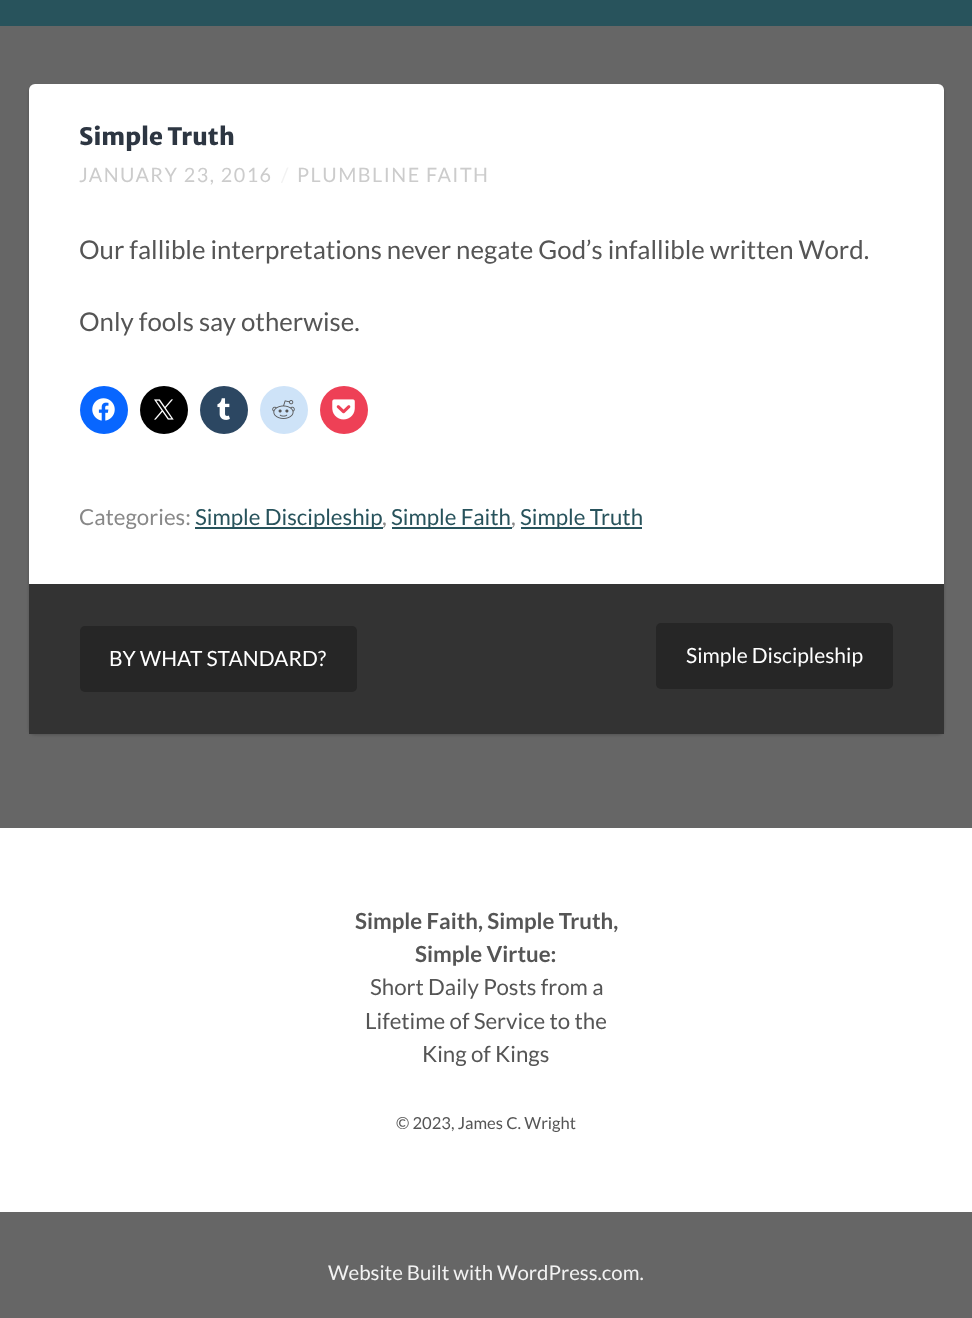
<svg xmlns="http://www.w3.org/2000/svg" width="972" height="1318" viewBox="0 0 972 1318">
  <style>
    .t1 { font: 800 24px Merriweather Sans; fill: #2d3642; }
    .t2 { font: 19.75px Lato; letter-spacing: 1.5px; fill: #ccc; }
    .t3 { font: 19.75px Lato; letter-spacing: 1.5px; fill: #f2f2f2; }
    .t4 { font: 25.8px Lato; fill: #555; }
    .t5 { font: 22.25px Lato; fill: #888; }
    .t6 { font: 22.25px Lato; fill: #28535c; }
    .t7 { font: 21px Lato; fill: #fff; }
    .t8 { font: bold 22.25px Lato; fill: #555; }
    .t9 { font: 22.25px Lato; fill: #555; }
    .t10 { font: 16.6px Lato; fill: #555; }
    .t11 { font: 20.4px Lato; fill: #f2f2f2; }
  </style>
  <rect width="100%" height="100%" fill="#666"/>
  <rect x="0" y="0" width="972" height="26" fill="#28535c"/>
  <rect x="29" y="86" width="915" height="649" rx="6" fill="#00000033" filter="blur(1.5px)"/>
  <rect x="29" y="84" width="915" height="650" rx="6" fill="#fff"/>
  <text x="79" y="145" class="t1">Simple Truth</text>
  <text x="79" y="182" class="t2">JANUARY 23, 2016</text>
  <text x="281" y="182" class="t3">/</text>
  <text x="297" y="182" class="t2">PLUMBLINE FAITH</text>
  <text x="79" y="259" class="t4">Our fallible interpretations never negate God’s infallible written Word.</text>
  <text x="79" y="331" class="t4">Only fools say otherwise.</text>
  <circle cx="104" cy="410" r="24" fill="#0866ff"/>
  <image x="92" y="398" width="23" height="23" href="images/1.png"/>
  <circle cx="164" cy="410" r="24" fill="#000"/>
  <image x="154" y="399" width="20" height="21" href="images/2.png"/>
  <circle cx="224" cy="410" r="24" fill="#2c4762"/>
  <image x="217" y="398" width="13" height="22" href="images/3.png"/>
  <circle cx="284" cy="410" r="24" fill="#cee3f8"/>
  <image x="272" y="400" width="23" height="19" href="images/4.png"/>
  <circle cx="344" cy="410" r="24" fill="#ee4056"/>
  <image x="332" y="399" width="23" height="21" href="images/5.png"/>
  <text x="79" y="525" class="t5">Categories:</text>
  <rect x="195" y="527" width="188" height="2" fill="#28535c"/>
  <text x="195" y="525" class="t6">Simple Discipleship</text>
  <text x="382" y="525" class="t5">,</text>
  <rect x="392" y="527" width="120" height="2" fill="#28535c"/>
  <text x="391" y="525" class="t6">Simple Faith</text>
  <text x="511" y="525" class="t5">,</text>
  <rect x="521" y="527" width="121" height="2" fill="#28535c"/>
  <text x="520" y="525" class="t6">Simple Truth</text>
  <rect x="29" y="584" width="915" height="150" fill="#333"/>
  <rect x="80" y="626" width="277" height="66" rx="5" fill="#262626"/>
  <text x="109" y="666" class="t7">BY WHAT STANDARD?</text>
  <rect x="656" y="623" width="237" height="66" rx="5" fill="#262626"/>
  <text x="686" y="663" class="t7">Simple Discipleship</text>
  <rect x="0" y="828" width="972" height="384" fill="#fff"/>
  <text x="355" y="929" class="t8">Simple Faith, Simple Truth,</text>
  <text x="415" y="962" class="t8">Simple Virtue:</text>
  <text x="370" y="995" class="t9">Short Daily Posts from a</text>
  <text x="365" y="1029" class="t9">Lifetime of Service to the</text>
  <text x="422" y="1062" class="t9">King of Kings</text>
  <text x="396" y="1129" class="t10">© 2023, James C. Wright</text>
  <text x="328" y="1280" class="t11">Website Built with WordPress.com.</text>
</svg>
